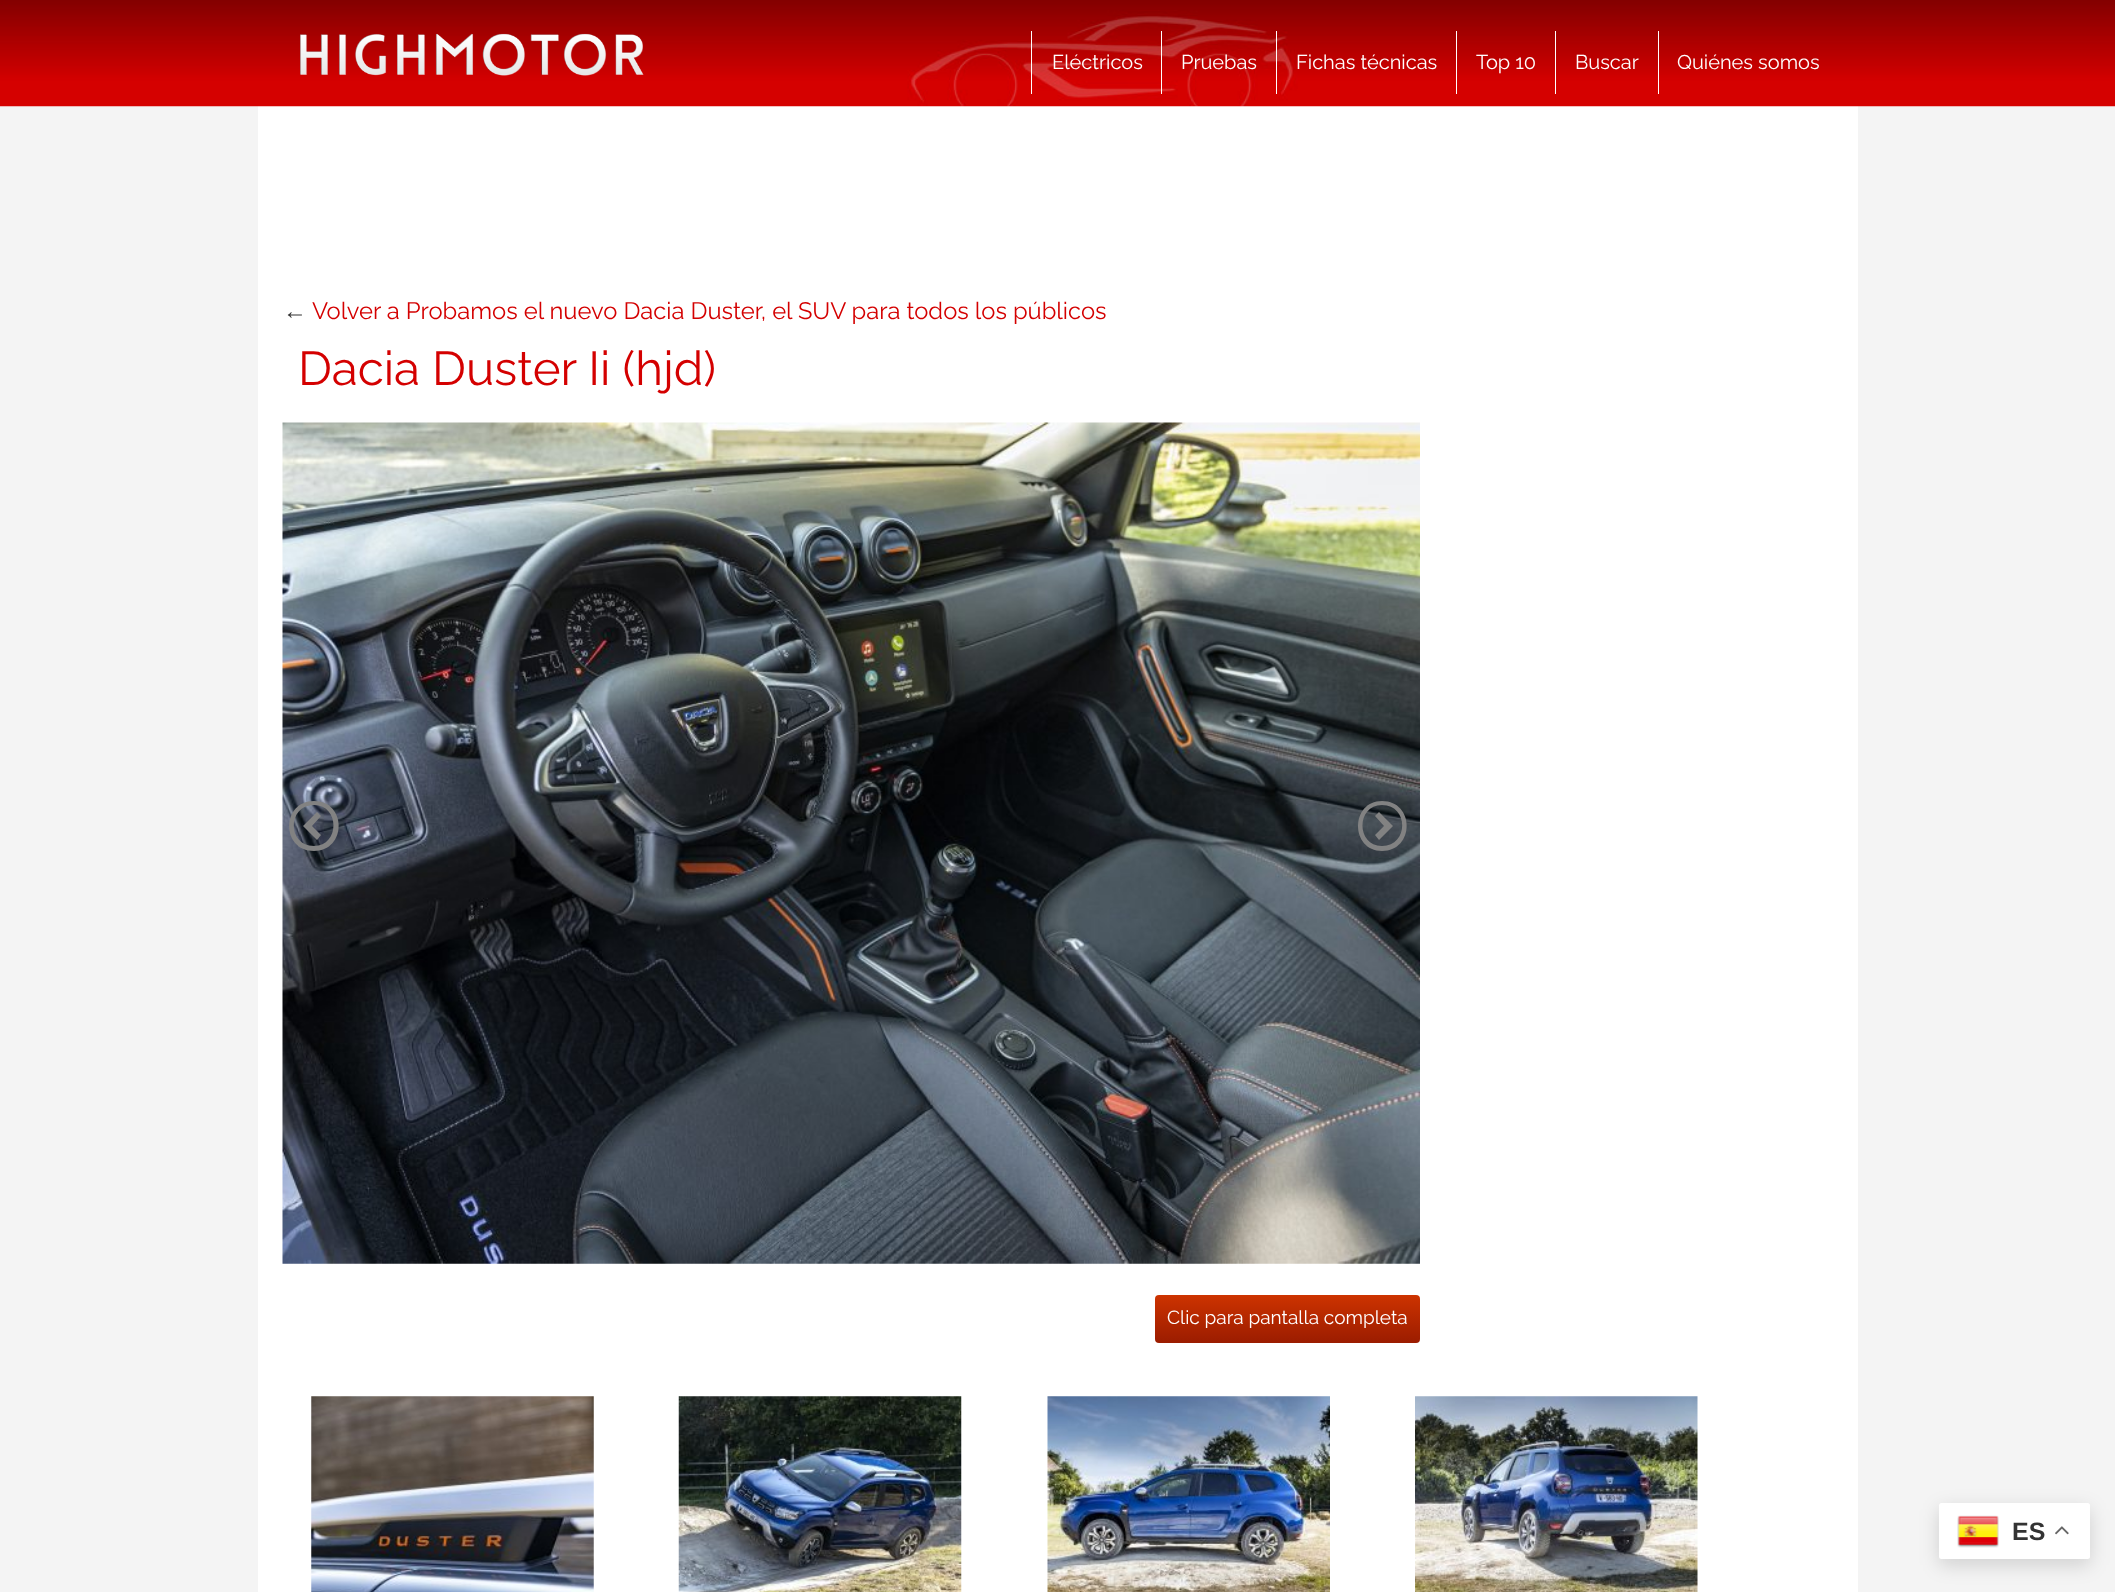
<svg xmlns="http://www.w3.org/2000/svg" width="2115" height="1592" viewBox="0 0 2115 1592">
  <style>
    .t1 { font: 20px Raleway; fill: #fff; }
    .t2 { font: 23.75px Liberation Sans; fill: #333; }
    .t3 { font: 23.75px Raleway; fill: #d40000; }
    .t4 { font: 47.5px Raleway; fill: #d40000; }
    .t5 { font: 19px Raleway; fill: #fff; }
    .t6 { font: bold 25px Liberation Sans; fill: #333; }
  </style>
  <defs>
    <linearGradient id="g1" gradientUnits="userSpaceOnUse" x1="1288" y1="1295" x2="1288" y2="1343"><stop offset="0" stop-color="#cd3300"/><stop offset="1" stop-color="#9b1c00"/></linearGradient>
  </defs>
  <rect width="100%" height="100%" fill="#f4f4f4"/>
  <rect x="258" y="106" width="1600" height="1486" fill="#fff"/>
  <image x="0" y="0" width="2115" height="107" href="images/1.png"/>
  <image x="300" y="33" width="344" height="43" href="images/2.png"/>
  <rect x="1031" y="31" width="1" height="63" fill="#fff"/>
  <text x="1052" y="69" class="t1">Eléctricos</text>
  <rect x="1161" y="31" width="1" height="63" fill="#fff"/>
  <text x="1181" y="69" class="t1">Pruebas</text>
  <rect x="1276" y="31" width="1" height="63" fill="#fff"/>
  <text x="1296" y="69" class="t1">Fichas técnicas</text>
  <rect x="1456" y="31" width="1" height="63" fill="#fff"/>
  <text x="1476" y="69" class="t1">Top 10</text>
  <rect x="1555" y="31" width="1" height="63" fill="#fff"/>
  <text x="1575" y="69" class="t1">Buscar</text>
  <rect x="1658" y="31" width="1" height="63" fill="#fff"/>
  <text x="1677" y="69" class="t1">Quiénes somos</text>
  <text x="283" y="319" class="t2">←</text>
  <text x="312" y="319" class="t3">Volver a Probamos el nuevo Dacia Duster, el SUV para todos los públicos</text>
  <text x="298" y="385" class="t4">Dacia Duster Ii (hjd)</text>
  <image x="282" y="422" width="1138" height="842" href="images/3.png"/>
  <path d="M314 851C347 851 347 801 314 801C281 801 281 851 314 851ZM314 805C340 805 340 846 314 846C287 846 287 805 314 805ZM321 816L317 812L303 826L317 840L321 835L312 826Z" fill="#828282"/>
  <path d="M1382 801C1350 801 1350 851 1382 851C1415 851 1415 801 1382 801ZM1382 846C1356 846 1356 805 1382 805C1409 805 1409 846 1382 846ZM1375 835L1379 840L1393 826L1379 812L1375 816L1384 826Z" fill="#828282"/>
  <rect x="1155" y="1295" width="265" height="48" rx="4" fill="url(#g1)"/>
  <text x="1167" y="1324" class="t5">Clic para pantalla completa</text>
  <image x="311" y="1396" width="283" height="196" href="images/4.png"/>
  <image x="678" y="1396" width="284" height="196" href="images/5.png"/>
  <image x="1047" y="1396" width="283" height="196" href="images/6.png"/>
  <image x="1415" y="1396" width="283" height="196" href="images/7.png"/>
  <rect x="1939" y="1509" width="151" height="56" rx="2.5" fill="#00000026" filter="blur(9.5px)"/>
  <rect x="1939" y="1503" width="151" height="56" rx="2.5" fill="#fff"/>
  <image x="1957" y="1515" width="42" height="33" href="images/8.png"/>
  <text x="2012" y="1540" class="t6">ES</text>
  <image x="2055" y="1526" width="14" height="9" href="images/9.png"/>
</svg>
